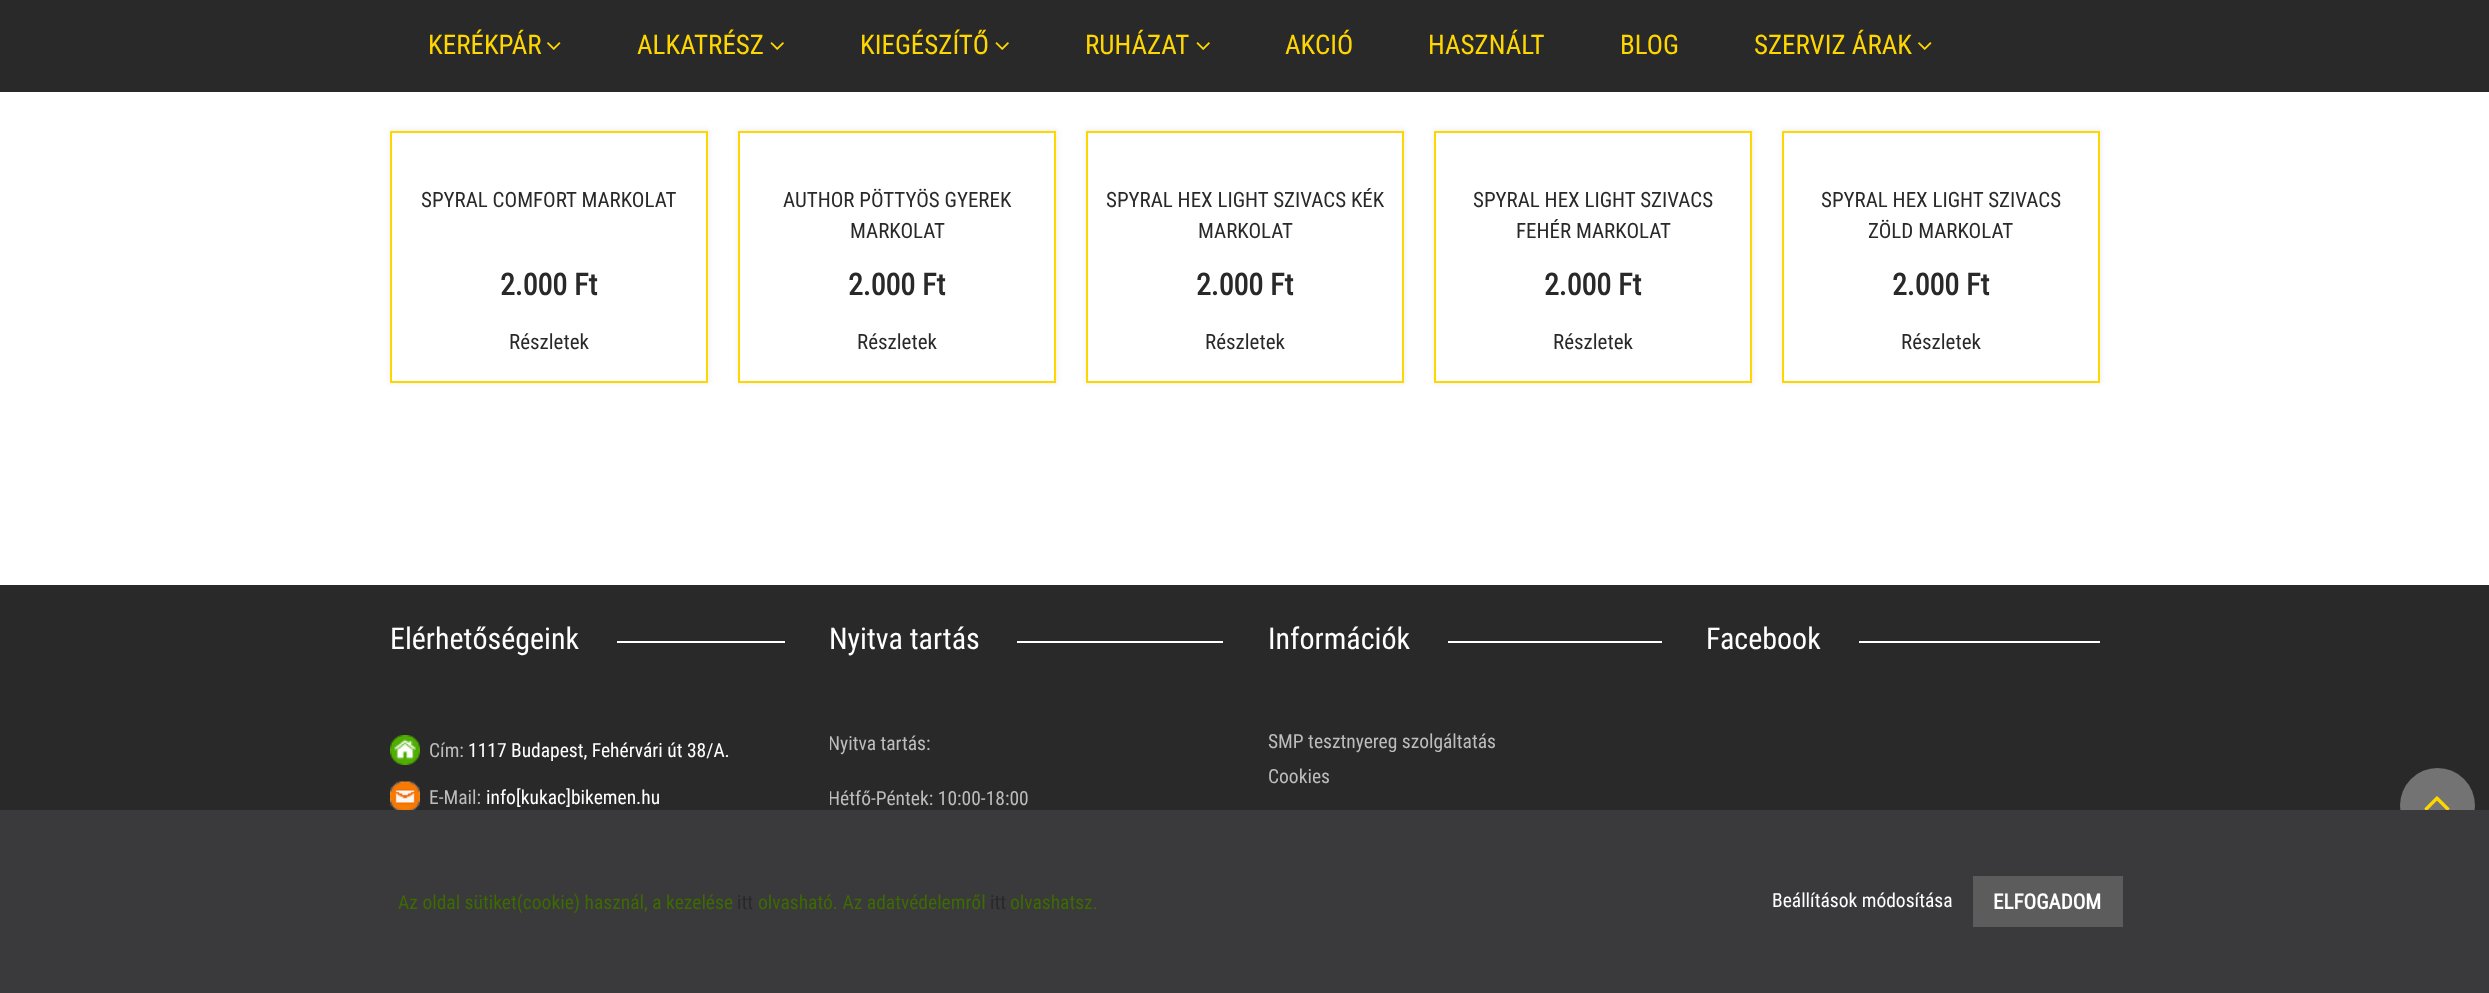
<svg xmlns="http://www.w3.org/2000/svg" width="2489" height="993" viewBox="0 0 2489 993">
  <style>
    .t1 { font: 27px Roboto Condensed; fill: #ffd700; }
    .t2 { font: 21px Roboto Condensed; fill: #292929; }
    .t3 { font: bold 30px Roboto Condensed; fill: #292929; }
    .t4 { font: 30px Roboto Condensed; fill: #fff; }
    .t5 { font: 19.5px Roboto Condensed; fill: #bdbdbd; }
    .t6 { font: 19.5px Roboto Condensed; fill: #fff; }
    .t7 { font: 19.5px Roboto Condensed; fill: #3c6b00; }
    .t8 { font: 19.5px Roboto Condensed; fill: #292929; }
    .t9 { font: bold 21px Roboto Condensed; fill: #fff; }
  </style>
  <defs>
    <clipPath id="clip1"><rect x="830" y="659" width="393" height="268"/></clipPath>
  </defs>
  <rect width="100%" height="100%" fill="#fff"/>
  <rect x="0" y="0" width="2489" height="92" fill="#292929"/>
  <text x="428" y="54" class="t1">KERÉKPÁR</text>
  <image x="547" y="42" width="14" height="8" href="images/1.png"/>
  <text x="637" y="54" class="t1">ALKATRÉSZ</text>
  <image x="770" y="42" width="14" height="8" href="images/2.png"/>
  <text x="860" y="54" class="t1">KIEGÉSZÍTŐ</text>
  <image x="995" y="42" width="14" height="8" href="images/2.png"/>
  <text x="1085" y="54" class="t1">RUHÁZAT</text>
  <image x="1196" y="42" width="14" height="8" href="images/2.png"/>
  <text x="1285" y="54" class="t1">AKCIÓ</text>
  <text x="1428" y="54" class="t1">HASZNÁLT</text>
  <text x="1620" y="54" class="t1">BLOG</text>
  <text x="1754" y="54" class="t1">SZERVIZ ÁRAK</text>
  <image x="1918" y="42" width="14" height="8" href="images/1.png"/>
  <rect x="389" y="129" width="321" height="255" fill="#0000000d" filter="blur(2px)"/>
  <rect x="391" y="132" width="316" height="250" fill="#fff" stroke="#ffd700" stroke-width="2"/>
  <text x="421" y="207" class="t2">SPYRAL COMFORT MARKOLAT</text>
  <text x="500" y="295" class="t3">2.000 Ft</text>
  <text x="509" y="349" class="t2">Részletek</text>
  <rect x="737" y="129" width="321" height="255" fill="#0000000d" filter="blur(2px)"/>
  <rect x="739" y="132" width="316" height="250" fill="#fff" stroke="#ffd700" stroke-width="2"/>
  <text x="783" y="207" class="t2">AUTHOR PÖTTYÖS GYEREK</text>
  <text x="850" y="238" class="t2">MARKOLAT</text>
  <text x="848" y="295" class="t3">2.000 Ft</text>
  <text x="857" y="349" class="t2">Részletek</text>
  <rect x="1085" y="129" width="321" height="255" fill="#0000000d" filter="blur(2px)"/>
  <rect x="1087" y="132" width="316" height="250" fill="#fff" stroke="#ffd700" stroke-width="2"/>
  <text x="1106" y="207" class="t2">SPYRAL HEX LIGHT SZIVACS KÉK</text>
  <text x="1198" y="238" class="t2">MARKOLAT</text>
  <text x="1196" y="295" class="t3">2.000 Ft</text>
  <text x="1205" y="349" class="t2">Részletek</text>
  <rect x="1433" y="129" width="321" height="255" fill="#0000000d" filter="blur(2px)"/>
  <rect x="1435" y="132" width="316" height="250" fill="#fff" stroke="#ffd700" stroke-width="2"/>
  <text x="1473" y="207" class="t2">SPYRAL HEX LIGHT SZIVACS</text>
  <text x="1516" y="238" class="t2">FEHÉR MARKOLAT</text>
  <text x="1544" y="295" class="t3">2.000 Ft</text>
  <text x="1553" y="349" class="t2">Részletek</text>
  <rect x="1781" y="129" width="321" height="255" fill="#0000000d" filter="blur(2px)"/>
  <rect x="1783" y="132" width="316" height="250" fill="#fff" stroke="#ffd700" stroke-width="2"/>
  <text x="1821" y="207" class="t2">SPYRAL HEX LIGHT SZIVACS</text>
  <text x="1868" y="238" class="t2">ZÖLD MARKOLAT</text>
  <text x="1892" y="295" class="t3">2.000 Ft</text>
  <text x="1901" y="349" class="t2">Részletek</text>
  <rect x="0" y="585" width="2489" height="225" fill="#292929"/>
  <text x="390" y="649" class="t4">Elérhetőségeink</text>
  <rect x="617" y="641" width="168" height="2" fill="#fff"/>
  <image x="390" y="735" width="30" height="30" href="images/3.png"/>
  <text x="429" y="757" class="t5">Cím:</text>
  <text x="468" y="757" class="t6">1117 Budapest, Fehérvári út 38/A.</text>
  <image x="390" y="781" width="30" height="29" href="images/4.png"/>
  <text x="429" y="804" class="t5">E-Mail:</text>
  <text x="486" y="804" class="t6">info[kukac]bikemen.hu</text>
  <text x="829" y="649" class="t4">Nyitva tartás</text>
  <rect x="1017" y="641" width="206" height="2" fill="#fff"/>
  <g clip-path="url(#clip1)">
    <text x="828" y="750" class="t5">Nyitva tartás:</text>
    <text x="828" y="805" class="t5">Hétfő-Péntek: 10:00-18:00</text>
  </g>
  <text x="1268" y="649" class="t4">Információk</text>
  <rect x="1448" y="641" width="214" height="2" fill="#fff"/>
  <text x="1268" y="748" class="t5">SMP tesztnyereg szolgáltatás</text>
  <text x="1268" y="783" class="t5">Cookies</text>
  <text x="1706" y="649" class="t4">Facebook</text>
  <rect x="1859" y="641" width="241" height="2" fill="#fff"/>
  <circle cx="2437.5" cy="805.5" r="37.5" fill="#737373"/>
  <image x="2424" y="796" width="26" height="14" href="images/5.png"/>
  <rect x="0" y="810" width="2489" height="183" fill="#3a393b"/>
  <text x="398" y="909" class="t7">Az oldal sütiket(cookie) használ, a kezelése</text>
  <text x="737" y="909" class="t8">itt</text>
  <text x="758" y="909" class="t7">olvasható. Az adatvédelemről</text>
  <text x="990" y="909" class="t8">itt</text>
  <text x="1010" y="909" class="t7">olvashatsz.</text>
  <text x="1772" y="907" class="t6">Beállítások módosítása</text>
  <rect x="1973" y="876" width="150" height="51" fill="#5c5c5c"/>
  <text x="1993" y="909" class="t9">ELFOGADOM</text>
</svg>
